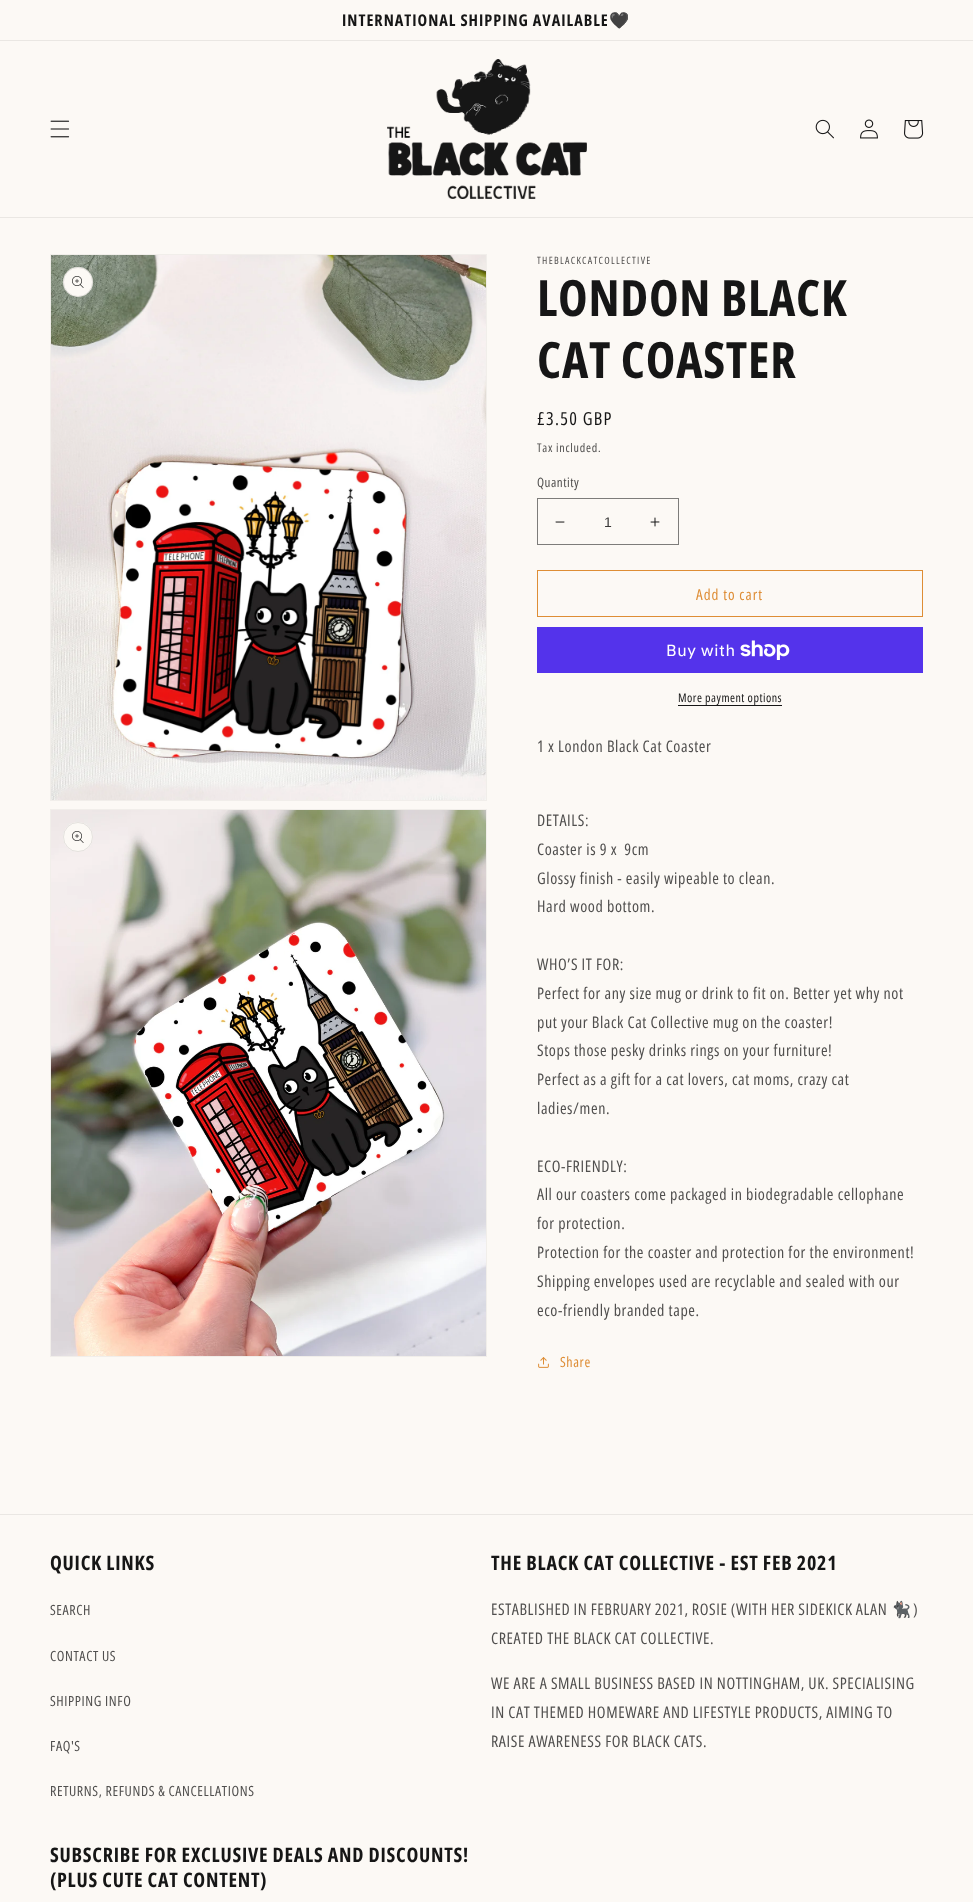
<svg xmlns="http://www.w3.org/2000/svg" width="973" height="1902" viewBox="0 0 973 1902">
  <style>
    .t1 { font: bold 16.25px Open Sans Condensed; letter-spacing: 1px; fill: #161616; }
    .t2 { font: bold 16.25px Noto Color Emoji; letter-spacing: 1px; fill: #161616; }
    .t3 { font: 10px Open Sans Condensed; letter-spacing: 1.3px; fill: #504f4e; }
    .t4 { font: bold 50px Open Sans Condensed; letter-spacing: 0.75px; fill: #161616; }
    .t5 { font: 18px Open Sans Condensed; letter-spacing: 1.3px; fill: #161616; }
    .t6 { font: 12px Open Sans Condensed; letter-spacing: 0.75px; fill: #504f4e; }
    .t7 { font: 13px Open Sans Condensed; letter-spacing: 0.5px; fill: #504f4e; }
    .t8 { font: 14px Liberation Sans; fill: #393837; }
    .t9 { font: 15px Open Sans Condensed; letter-spacing: 1px; fill: #de8d35; }
    .t10 { font: 16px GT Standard; letter-spacing: 0.6px; fill: #fff; }
    .t11 { font: 12px Open Sans Condensed; letter-spacing: 0.5px; fill: #161616; }
    .t12 { font: 16px Open Sans Condensed; letter-spacing: 0.6px; fill: #504f4e; }
    .t13 { font: 14px Open Sans Condensed; letter-spacing: 0.6px; fill: #de8d35; }
    .t14 { font: bold 20px Open Sans Condensed; letter-spacing: 0.75px; fill: #161616; }
    .t15 { font: 14px Open Sans Condensed; letter-spacing: 0.6px; fill: #504f4e; }
    .t16 { font: 16px Noto Color Emoji; letter-spacing: 0.6px; fill: #504f4e; }
  </style>
  <rect width="100%" height="100%" fill="#fcf9f5"/>
  <rect x="0" y="40" width="973" height="1" fill="#eae7e3"/>
  <text x="342" y="26" class="t1">INTERNATIONAL SHIPPING AVAILABLE</text>
  <text x="609" y="26" class="t2">🖤</text>
  <rect x="0" y="217" width="973" height="1" fill="#eae7e3"/>
  <image x="50" y="120" width="20" height="18" href="images/1.png"/>
  <image x="387" y="59" width="200" height="140" href="images/2.png"/>
  <image x="815" y="119" width="19" height="20" href="images/3.png"/>
  <image x="860" y="119" width="18" height="20" href="images/4.png"/>
  <image x="904" y="120" width="20" height="19" href="images/5.png"/>
  <rect x="50.5" y="254.5" width="436" height="546" fill="none" stroke="#f1eeea"/>
  <image x="51" y="255" width="435" height="545" href="images/6.png"/>
  <circle cx="78" cy="282" r="15" fill="#fcf9f5"/>
  <circle cx="78" cy="282" r="14.5" fill="none" stroke="#1616161a"/>
  <image x="72" y="276" width="12" height="12" href="images/7.png"/>
  <rect x="50.5" y="809.5" width="436" height="547" fill="none" stroke="#f1eeea"/>
  <image x="51" y="810" width="435" height="546" href="images/8.png"/>
  <circle cx="78" cy="837" r="15" fill="#fcf9f5"/>
  <circle cx="78" cy="837" r="14.5" fill="none" stroke="#1616161a"/>
  <image x="72" y="831" width="12" height="12" href="images/7.png"/>
  <text x="537" y="264" class="t3">THEBLACKCATCOLLECTIVE</text>
  <text x="537" y="316" class="t4">LONDON BLACK</text>
  <text x="537" y="378" class="t4">CAT COASTER</text>
  <text x="537" y="425" class="t5">£3.50 GBP</text>
  <text x="537" y="452" class="t6">Tax included.</text>
  <text x="537" y="487" class="t7">Quantity</text>
  <image x="555" y="521" width="10" height="2" href="images/9.png"/>
  <image x="650" y="517" width="10" height="10" href="images/10.png"/>
  <rect x="537.5" y="498.5" width="141" height="46" fill="none" stroke="#7d7c7a"/>
  <text x="604" y="527" class="t8">1</text>
  <rect x="537.5" y="570.5" width="385" height="46" fill="none" stroke="#de8d35"/>
  <text x="696" y="600" class="t9">Add to cart</text>
  <rect x="537" y="627" width="386" height="46" fill="#5433eb"/>
  <text x="666" y="656" class="t10">Buy with</text>
  <image x="740" y="640" width="50" height="20" href="images/11.png"/>
  <text x="678" y="702" class="t11">More payment options</text>
  <rect x="678" y="705" width="104" height="1" fill="#161616"/>
  <text x="537" y="752" class="t12">1 x London Black Cat Coaster</text>
  <text x="537" y="826" class="t12">DETAILS:</text>
  <text x="537" y="855" class="t12" xml:space="preserve">Coaster is 9 x  9cm</text>
  <text x="537" y="884" class="t12">Glossy finish - easily wipeable to clean.</text>
  <text x="537" y="912" class="t12">Hard wood bottom.</text>
  <text x="537" y="970" class="t12">WHO’S IT FOR:</text>
  <text x="537" y="999" class="t12">Perfect for any size mug or drink to fit on. Better yet why not</text>
  <text x="537" y="1028" class="t12">put your Black Cat Collective mug on the coaster!</text>
  <text x="537" y="1056" class="t12">Stops those pesky drinks rings on your furniture!</text>
  <text x="537" y="1085" class="t12">Perfect as a gift for a cat lovers, cat moms, crazy cat</text>
  <text x="537" y="1114" class="t12">ladies/men.</text>
  <text x="537" y="1172" class="t12">ECO-FRIENDLY:</text>
  <text x="537" y="1200" class="t12">All our coasters come packaged in biodegradable cellophane</text>
  <text x="537" y="1229" class="t12">for protection.</text>
  <text x="537" y="1258" class="t12">Protection for the coaster and protection for the environment!</text>
  <text x="537" y="1287" class="t12">Shipping envelopes used are recyclable and sealed with our</text>
  <text x="537" y="1316" class="t12">eco-friendly branded tape.</text>
  <image x="538" y="1357" width="11" height="11" href="images/12.png"/>
  <text x="560" y="1367" class="t13">Share</text>
  <rect x="0" y="1514" width="973" height="1" fill="#eae7e3"/>
  <text x="50" y="1570" class="t14">QUICK LINKS</text>
  <text x="50" y="1615" class="t15">SEARCH</text>
  <text x="50" y="1661" class="t15">CONTACT US</text>
  <text x="50" y="1706" class="t15">SHIPPING INFO</text>
  <text x="50" y="1751" class="t15">FAQ'S</text>
  <text x="50" y="1796" class="t15">RETURNS, REFUNDS &amp; CANCELLATIONS</text>
  <text x="491" y="1570" class="t14">THE BLACK CAT COLLECTIVE - EST FEB 2021</text>
  <text x="491" y="1615" word-spacing="-0.25" class="t12">ESTABLISHED IN FEBRUARY 2021, ROSIE (WITH HER SIDEKICK ALAN</text>
  <text x="891" y="1615" class="t16">🐈‍⬛</text>
  <text x="913" y="1615" class="t12">)</text>
  <text x="491" y="1644" class="t12">CREATED THE BLACK CAT COLLECTIVE.</text>
  <text x="491" y="1689" class="t12">WE ARE A SMALL BUSINESS BASED IN NOTTINGHAM, UK. SPECIALISING</text>
  <text x="491" y="1718" class="t12">IN CAT THEMED HOMEWARE AND LIFESTYLE PRODUCTS, AIMING TO</text>
  <text x="491" y="1747" class="t12">RAISE AWARENESS FOR BLACK CATS.</text>
  <text x="50" y="1862" class="t14">SUBSCRIBE FOR EXCLUSIVE DEALS AND DISCOUNTS!</text>
  <text x="50" y="1887" class="t14">(PLUS CUTE CAT CONTENT)</text>
</svg>
